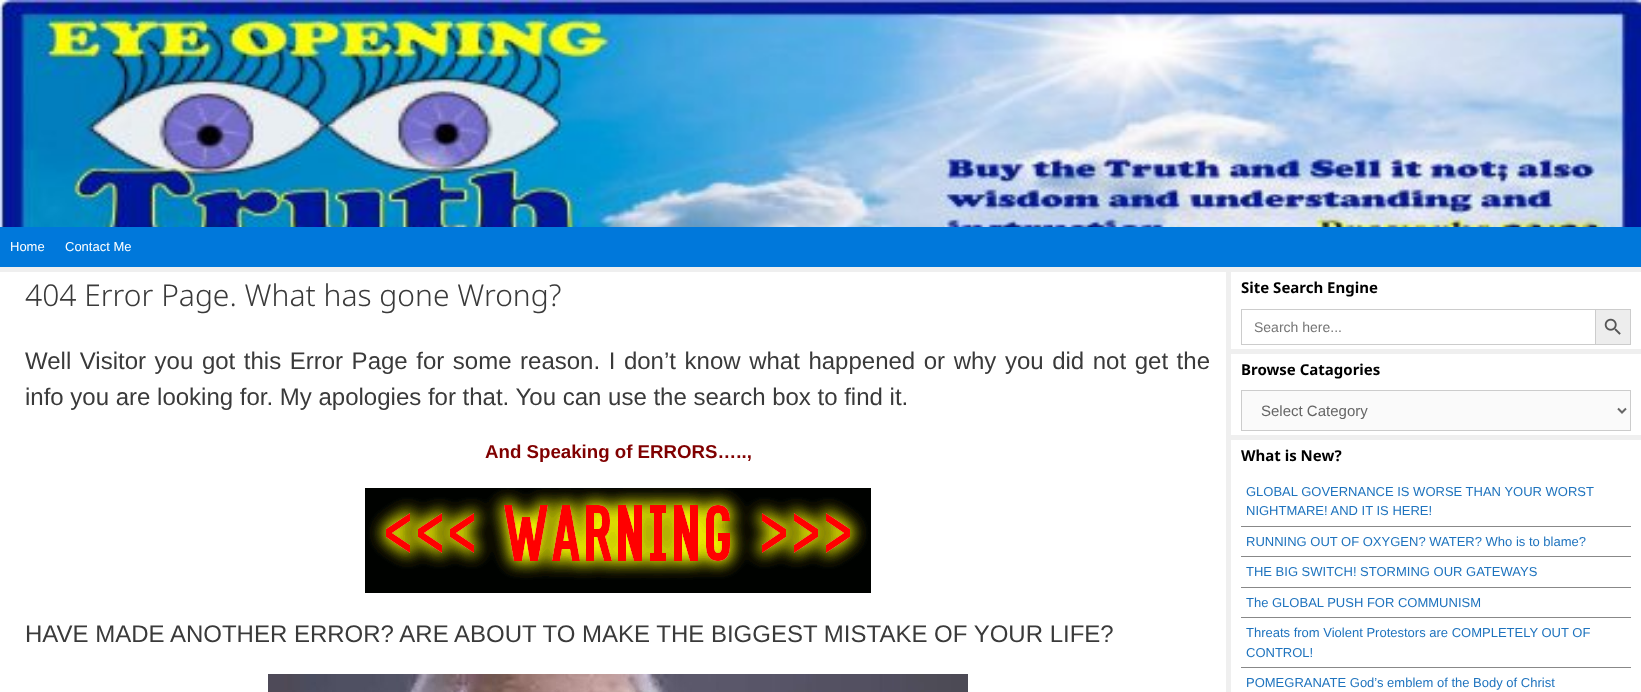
<svg xmlns="http://www.w3.org/2000/svg" width="1641" height="692" viewBox="0 0 1641 692">
  <style>
    .t1 { font: 13px Liberation Sans; fill: #fff; }
    .t2 { font: 300 30px Noto Sans; fill: #3a3a3a; }
    .t3 { font: 24px Liberation Sans; fill: #3a3a3a; }
    .t4 { font: bold 18.7px Liberation Sans; fill: #800000; }
    .t5 { font: bold 15px Noto Sans; fill: #000; }
    .t6 { font: 14px Liberation Sans; fill: #757575; }
    .t7 { font: 15px Liberation Sans; fill: #666; }
    .t8 { font: 13px Liberation Sans; fill: #1e73be; }
  </style>
  <rect width="100%" height="100%" fill="#efefef"/>
  <image x="0" y="0" width="1641" height="227" href="images/1.png"/>
  <rect x="0" y="227" width="1641" height="40" fill="#0078db"/>
  <text x="10" y="251" class="t1">Home</text>
  <text x="65" y="251" class="t1">Contact Me</text>
  <rect x="0" y="272" width="1226" height="420" fill="#fff"/>
  <text x="25" y="306" class="t2">404 Error Page. What has gone Wrong?</text>
  <text x="25" y="369" word-spacing="1.9" class="t3">Well Visitor you got this Error Page for some reason. I don’t know what happened or why you did not get the</text>
  <text x="25" y="405" class="t3">info you are looking for. My apologies for that. You can use the search box to find it.</text>
  <text x="485" y="458" class="t4">And Speaking of ERRORS…..,</text>
  <image x="365" y="488" width="506" height="105" href="images/2.png"/>
  <text x="25" y="642" class="t3">HAVE MADE ANOTHER ERROR? ARE ABOUT TO MAKE THE BIGGEST MISTAKE OF YOUR LIFE?</text>
  <image x="268" y="674" width="700" height="18" href="images/3.png"/>
  <rect x="1231" y="272" width="410" height="77" fill="#fff"/>
  <text x="1241" y="293" class="t5">Site Search Engine</text>
  <rect x="1241" y="309" width="354" height="1" fill="#ccc"/>
  <rect x="1241" y="344" width="354" height="1" fill="#ccc"/>
  <rect x="1241" y="309" width="1" height="36" fill="#ccc"/>
  <text x="1254" y="332" class="t6">Search here...</text>
  <rect x="1595.5" y="309.5" width="35" height="35" fill="#ededed" stroke="#ccc"/>
  <image x="1604" y="318" width="17" height="17" href="images/4.png"/>
  <rect x="1231" y="354" width="410" height="81" fill="#fff"/>
  <text x="1241" y="375" class="t5">Browse Catagories</text>
  <rect x="1241.5" y="390.5" width="389" height="40" fill="#fafafa" stroke="#ccc"/>
  <path d="M1618 408.5L1622 412.5L1626 408.5" fill="none" stroke="#666" stroke-width="2"/>
  <text x="1261" y="416" class="t7">Select Category</text>
  <rect x="1231" y="440" width="410" height="252" fill="#fff"/>
  <text x="1241" y="461" class="t5">What is New?</text>
  <rect x="1241" y="526" width="390" height="1" fill="#888"/>
  <text x="1246" y="496" class="t8">GLOBAL GOVERNANCE IS WORSE THAN YOUR WORST</text>
  <text x="1246" y="515" class="t8">NIGHTMARE! AND IT IS HERE!</text>
  <rect x="1241" y="556" width="390" height="1" fill="#888"/>
  <text x="1246" y="546" class="t8">RUNNING OUT OF OXYGEN? WATER? Who is to blame?</text>
  <rect x="1241" y="587" width="390" height="1" fill="#888"/>
  <text x="1246" y="576" class="t8">THE BIG SWITCH! STORMING OUR GATEWAYS</text>
  <rect x="1241" y="617" width="390" height="1" fill="#888"/>
  <text x="1246" y="607" class="t8">The GLOBAL PUSH FOR COMMUNISM</text>
  <rect x="1241" y="667" width="390" height="1" fill="#888"/>
  <text x="1246" y="637" class="t8">Threats from Violent Protestors are COMPLETELY OUT OF</text>
  <text x="1246" y="657" class="t8">CONTROL!</text>
  <text x="1246" y="687" class="t8">POMEGRANATE God’s emblem of the Body of Christ</text>
</svg>
